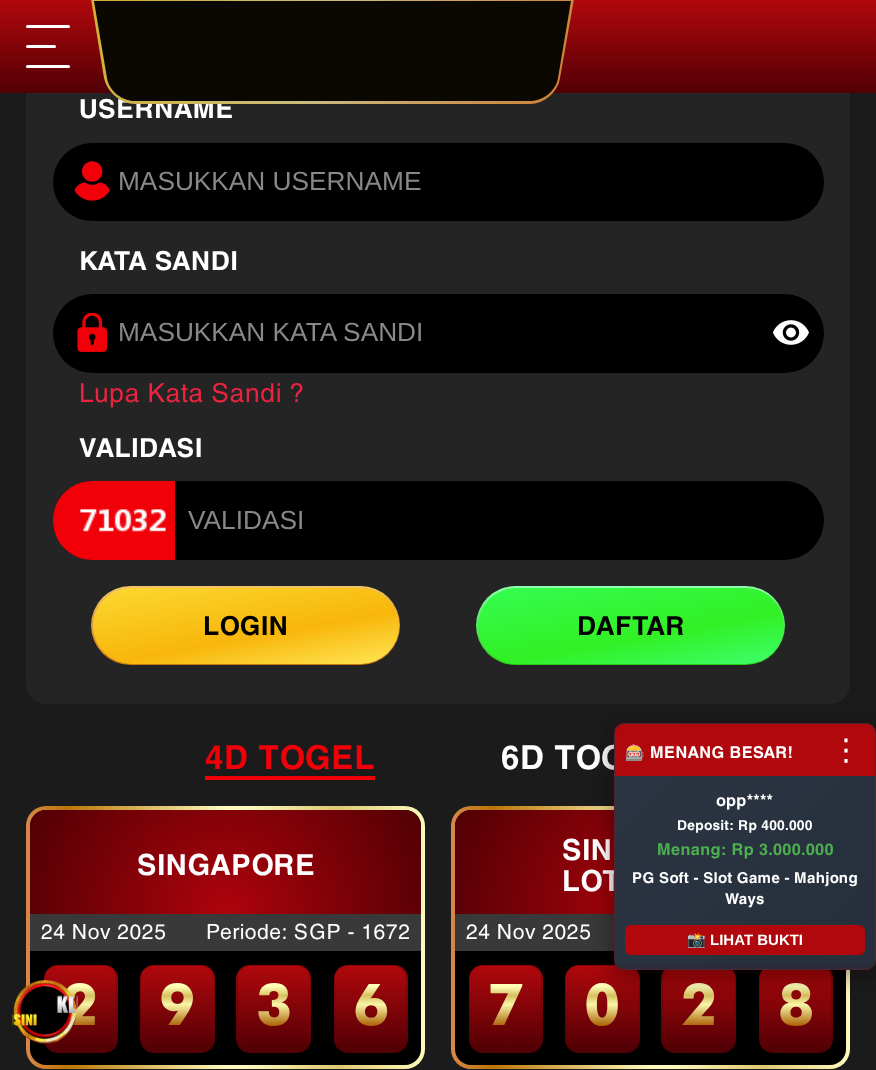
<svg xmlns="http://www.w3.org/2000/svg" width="876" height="1070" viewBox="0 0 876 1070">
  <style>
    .t1 { font: bold 26.25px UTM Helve; fill: #fff; }
    .t2 { font: 26.25px Liberation Sans; fill: #888; }
    .t3 { font: 26.25px UTM Helve; fill: #eb233f; }
    .t4 { font: bold 26.25px UTM Helve; fill: #000; }
    .t5 { font: bold 33px UTM Helve; fill: #f10009; }
    .t6 { font: bold 33px UTM Helve; fill: #fff; }
    .t7 { font: bold 29px UTM Helve; fill: #fff; }
    .t8 { font: 21px UTM Helve; fill: #fff; }
    .t9 { font: bold 58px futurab; fill: url(#g1); }
    .t10 { font: bold 58px futurab; fill: url(#g2); }
    .t11 { font: bold 58px futurab; fill: url(#g3); }
    .t12 { font: bold 58px futurab; fill: url(#g4); }
    .t13 { font: bold 58px futurab; fill: url(#g5); }
    .t14 { font: bold 58px futurab; fill: url(#g6); }
    .t15 { font: bold 58px futurab; fill: url(#g7); }
    .t16 { font: bold 58px futurab; fill: url(#g8); }
    .t17 { font: bold 16.25px Noto Color Emoji; fill: #fff; }
    .t18 { font: bold 16.25px UTM Helve; fill: #fff; }
    .t19 { font: 30px DejaVu Sans; fill: #fff; }
    .t20 { font: bold 13.75px UTM Helve; fill: #fff; }
    .t21 { font: bold 16.25px UTM Helve; fill: #4caf50; }
    .t22 { font: bold 15px UTM Helve; fill: #fff; }
    .t23 { font: bold 15px Noto Color Emoji; fill: #fff; }
    .t24 { font: bold 15px Liberation Sans; fill: #fff; }
  </style>
  <defs>
    <linearGradient id="g1" gradientUnits="userSpaceOnUse" x1="80" y1="972" x2="80" y2="1044"><stop offset="0.2" stop-color="#ffffb7"/><stop offset="0.33" stop-color="#d7bf60"/><stop offset="0.45" stop-color="#f9f6a8"/><stop offset="0.75" stop-color="#ab6005"/></linearGradient>
    <linearGradient id="g2" gradientUnits="userSpaceOnUse" x1="177" y1="972" x2="177" y2="1044"><stop offset="0.2" stop-color="#ffffb7"/><stop offset="0.33" stop-color="#d7bf60"/><stop offset="0.45" stop-color="#f9f6a8"/><stop offset="0.75" stop-color="#ab6005"/></linearGradient>
    <linearGradient id="g3" gradientUnits="userSpaceOnUse" x1="274" y1="972" x2="274" y2="1044"><stop offset="0.2" stop-color="#ffffb7"/><stop offset="0.33" stop-color="#d7bf60"/><stop offset="0.45" stop-color="#f9f6a8"/><stop offset="0.75" stop-color="#ab6005"/></linearGradient>
    <linearGradient id="g4" gradientUnits="userSpaceOnUse" x1="371" y1="972" x2="371" y2="1044"><stop offset="0.2" stop-color="#ffffb7"/><stop offset="0.33" stop-color="#d7bf60"/><stop offset="0.45" stop-color="#f9f6a8"/><stop offset="0.75" stop-color="#ab6005"/></linearGradient>
    <linearGradient id="g5" gradientUnits="userSpaceOnUse" x1="505" y1="972" x2="505" y2="1044"><stop offset="0.2" stop-color="#ffffb7"/><stop offset="0.33" stop-color="#d7bf60"/><stop offset="0.45" stop-color="#f9f6a8"/><stop offset="0.75" stop-color="#ab6005"/></linearGradient>
    <linearGradient id="g6" gradientUnits="userSpaceOnUse" x1="602" y1="972" x2="602" y2="1044"><stop offset="0.2" stop-color="#ffffb7"/><stop offset="0.33" stop-color="#d7bf60"/><stop offset="0.45" stop-color="#f9f6a8"/><stop offset="0.75" stop-color="#ab6005"/></linearGradient>
    <linearGradient id="g7" gradientUnits="userSpaceOnUse" x1="699" y1="972" x2="699" y2="1044"><stop offset="0.2" stop-color="#ffffb7"/><stop offset="0.33" stop-color="#d7bf60"/><stop offset="0.45" stop-color="#f9f6a8"/><stop offset="0.75" stop-color="#ab6005"/></linearGradient>
    <linearGradient id="g8" gradientUnits="userSpaceOnUse" x1="796" y1="972" x2="796" y2="1044"><stop offset="0.2" stop-color="#ffffb7"/><stop offset="0.33" stop-color="#d7bf60"/><stop offset="0.45" stop-color="#f9f6a8"/><stop offset="0.75" stop-color="#ab6005"/></linearGradient>
    <linearGradient id="g9" gradientUnits="userSpaceOnUse" x1="438" y1="0" x2="438" y2="93"><stop offset="0" stop-color="#b0080c"/><stop offset="1" stop-color="#510005"/></linearGradient>
    <linearGradient id="g10" gradientUnits="userSpaceOnUse" x1="89" y1="5" x2="360" y2="98"><stop offset="0" stop-color="#cfaf35"/><stop offset="1" stop-color="#c8bf86"/></linearGradient>
    <linearGradient id="g11" gradientUnits="userSpaceOnUse" x1="321" y1="5" x2="559" y2="98"><stop offset="0" stop-color="#c8bf86"/><stop offset="1" stop-color="#ce8237"/></linearGradient>
    <linearGradient id="g12" gradientUnits="userSpaceOnUse" x1="246" y1="586" x2="246" y2="665"><stop offset="0" stop-color="#f1c46c"/><stop offset="1" stop-color="#cc7610"/></linearGradient>
    <linearGradient id="g13" gradientUnits="userSpaceOnUse" x1="257" y1="689" x2="234" y2="562"><stop offset="0" stop-color="#ffe654"/><stop offset="0.4" stop-color="#f8b60b"/><stop offset="1" stop-color="#fbd931"/></linearGradient>
    <linearGradient id="g14" gradientUnits="userSpaceOnUse" x1="631" y1="586" x2="631" y2="665"><stop offset="0" stop-color="#92feaf"/><stop offset="1" stop-color="#29cb18"/></linearGradient>
    <linearGradient id="g15" gradientUnits="userSpaceOnUse" x1="642" y1="689" x2="619" y2="562"><stop offset="0" stop-color="#3dff6b"/><stop offset="0.4" stop-color="#32f024"/><stop offset="1" stop-color="#35fd52"/></linearGradient>
    <linearGradient id="g16" gradientUnits="userSpaceOnUse" x1="26" y1="938" x2="425" y2="938"><stop offset="0" stop-color="#d9874d"/><stop offset="0.1" stop-color="#bb7504"/><stop offset="0.5" stop-color="#fefabd"/><stop offset="0.55" stop-color="#fefabd"/><stop offset="0.78" stop-color="#dec873"/><stop offset="1" stop-color="#fefabd"/></linearGradient>
    <radialGradient id="g17" gradientUnits="userSpaceOnUse" cx="226" cy="914" r="221"><stop offset="0" stop-color="#af030c"/><stop offset="1" stop-color="#500004"/></radialGradient>
    <linearGradient id="g18" gradientUnits="userSpaceOnUse" x1="81" y1="965" x2="81" y2="1053"><stop offset="0" stop-color="#93060b"/><stop offset="1" stop-color="#510005"/></linearGradient>
    <linearGradient id="g19" gradientUnits="userSpaceOnUse" x1="81" y1="966" x2="81" y2="1051"><stop offset="0" stop-color="#b0080c"/><stop offset="1" stop-color="#510005"/></linearGradient>
    <linearGradient id="g20" gradientUnits="userSpaceOnUse" x1="178" y1="965" x2="178" y2="1053"><stop offset="0" stop-color="#93060b"/><stop offset="1" stop-color="#510005"/></linearGradient>
    <linearGradient id="g21" gradientUnits="userSpaceOnUse" x1="178" y1="966" x2="178" y2="1051"><stop offset="0" stop-color="#b0080c"/><stop offset="1" stop-color="#510005"/></linearGradient>
    <linearGradient id="g22" gradientUnits="userSpaceOnUse" x1="274" y1="965" x2="274" y2="1053"><stop offset="0" stop-color="#93060b"/><stop offset="1" stop-color="#510005"/></linearGradient>
    <linearGradient id="g23" gradientUnits="userSpaceOnUse" x1="274" y1="966" x2="274" y2="1051"><stop offset="0" stop-color="#b0080c"/><stop offset="1" stop-color="#510005"/></linearGradient>
    <linearGradient id="g24" gradientUnits="userSpaceOnUse" x1="371" y1="965" x2="371" y2="1053"><stop offset="0" stop-color="#93060b"/><stop offset="1" stop-color="#510005"/></linearGradient>
    <linearGradient id="g25" gradientUnits="userSpaceOnUse" x1="371" y1="966" x2="371" y2="1051"><stop offset="0" stop-color="#b0080c"/><stop offset="1" stop-color="#510005"/></linearGradient>
    <linearGradient id="g26" gradientUnits="userSpaceOnUse" x1="451" y1="938" x2="850" y2="938"><stop offset="0" stop-color="#d9874d"/><stop offset="0.1" stop-color="#bb7504"/><stop offset="0.5" stop-color="#fefabd"/><stop offset="0.55" stop-color="#fefabd"/><stop offset="0.78" stop-color="#dec873"/><stop offset="1" stop-color="#fefabd"/></linearGradient>
    <radialGradient id="g27" gradientUnits="userSpaceOnUse" cx="651" cy="914" r="221"><stop offset="0" stop-color="#af030c"/><stop offset="1" stop-color="#500004"/></radialGradient>
    <linearGradient id="g28" gradientUnits="userSpaceOnUse" x1="506" y1="965" x2="506" y2="1053"><stop offset="0" stop-color="#93060b"/><stop offset="1" stop-color="#510005"/></linearGradient>
    <linearGradient id="g29" gradientUnits="userSpaceOnUse" x1="506" y1="966" x2="506" y2="1051"><stop offset="0" stop-color="#b0080c"/><stop offset="1" stop-color="#510005"/></linearGradient>
    <linearGradient id="g30" gradientUnits="userSpaceOnUse" x1="603" y1="965" x2="603" y2="1053"><stop offset="0" stop-color="#93060b"/><stop offset="1" stop-color="#510005"/></linearGradient>
    <linearGradient id="g31" gradientUnits="userSpaceOnUse" x1="603" y1="966" x2="603" y2="1051"><stop offset="0" stop-color="#b0080c"/><stop offset="1" stop-color="#510005"/></linearGradient>
    <linearGradient id="g32" gradientUnits="userSpaceOnUse" x1="699" y1="965" x2="699" y2="1053"><stop offset="0" stop-color="#93060b"/><stop offset="1" stop-color="#510005"/></linearGradient>
    <linearGradient id="g33" gradientUnits="userSpaceOnUse" x1="699" y1="966" x2="699" y2="1051"><stop offset="0" stop-color="#b0080c"/><stop offset="1" stop-color="#510005"/></linearGradient>
    <linearGradient id="g34" gradientUnits="userSpaceOnUse" x1="796" y1="965" x2="796" y2="1053"><stop offset="0" stop-color="#93060b"/><stop offset="1" stop-color="#510005"/></linearGradient>
    <linearGradient id="g35" gradientUnits="userSpaceOnUse" x1="796" y1="966" x2="796" y2="1051"><stop offset="0" stop-color="#b0080c"/><stop offset="1" stop-color="#510005"/></linearGradient>
    <clipPath id="clip1"><rect x="614" y="723" width="262" height="247" rx="10"/></clipPath>
    <linearGradient id="g36" gradientUnits="userSpaceOnUse" x1="619" y1="475" x2="871" y2="728"><stop offset="0" stop-color="#2d3443"/><stop offset="1" stop-color="#25303c"/></linearGradient>
    <linearGradient id="g37" gradientUnits="userSpaceOnUse" x1="359" y1="720" x2="611" y2="973"><stop offset="0" stop-color="#2d3443"/><stop offset="1" stop-color="#25303c"/></linearGradient>
    <linearGradient id="g38" gradientUnits="userSpaceOnUse" x1="619" y1="720" x2="871" y2="973"><stop offset="0" stop-color="#2d3443"/><stop offset="1" stop-color="#25303c"/></linearGradient>
    <linearGradient id="g39" gradientUnits="userSpaceOnUse" x1="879" y1="720" x2="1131" y2="973"><stop offset="0" stop-color="#2d3443"/><stop offset="1" stop-color="#25303c"/></linearGradient>
    <linearGradient id="g40" gradientUnits="userSpaceOnUse" x1="619" y1="965" x2="871" y2="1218"><stop offset="0" stop-color="#2d3443"/><stop offset="1" stop-color="#25303c"/></linearGradient>
    <clipPath id="clip2"><rect x="615" y="724" width="260" height="245" rx="9"/></clipPath>
  </defs>
  <rect width="100%" height="100%" fill="#1b1b1b"/>
  <rect x="26" y="-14" width="824" height="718" rx="20" fill="#242424"/>
  <rect x="0" y="0" width="876" height="93" fill="url(#g9)"/>
  <rect x="26" y="25" width="44" height="3" rx="1.5" fill="#fff"/>
  <rect x="26" y="45" width="30" height="3" rx="1.5" fill="#fff"/>
  <rect x="26" y="65" width="44" height="3" rx="1.5" fill="#fff"/>
  <text x="79" y="118" class="t1">USERNAME</text>
  <path d="M91-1H340L359 104H135C121 104 107 92 104 78Z" fill="url(#g10)"/>
  <path d="M94 1H338L356 101H135C122 101 109 91 107 78Z" fill="#0b0801"/>
  <path d="M325-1H574L560 78C558 92 544 104 530 104H306Z" fill="url(#g11)"/>
  <path d="M324 1H571L558 78C556 91 543 101 530 101H307Z" fill="#0b0801"/>
  <rect x="131" y="5" width="193" height="96" fill="#0b0801"/>
  <rect x="53" y="143" width="771" height="78" rx="39" fill="#000"/>
  <image x="74" y="161" width="36" height="40" href="images/1.png"/>
  <text x="118" y="190" class="t2">MASUKKAN USERNAME</text>
  <text x="79" y="270" class="t1">KATA SANDI</text>
  <rect x="53" y="294" width="771" height="79" rx="39.5" fill="#000"/>
  <image x="77" y="313" width="30" height="39" href="images/2.png"/>
  <text x="118" y="341" class="t2">MASUKKAN KATA SANDI</text>
  <image x="772" y="320" width="37" height="25" href="images/3.png"/>
  <text x="79" y="402" class="t3">Lupa Kata Sandi ?</text>
  <text x="79" y="457" class="t1">VALIDASI</text>
  <rect x="53" y="481" width="771" height="79" rx="39.5" fill="#000"/>
  <path d="M92.5 481H175V560H92.5C70.5 560 53 542.5 53 520.5C53 498.5 70.5 481 92.5 481Z" fill="#f10009"/>
  <image x="80" y="509" width="86" height="23" href="images/4.png"/>
  <text x="188" y="529" class="t2">VALIDASI</text>
  <rect x="91" y="586" width="309" height="79" rx="39.5" fill="url(#g12)"/>
  <rect x="93" y="588" width="306" height="76" rx="38" fill="url(#g13)"/>
  <text x="203" y="635" class="t4">LOGIN</text>
  <rect x="476" y="586" width="309" height="79" rx="39.5" fill="url(#g14)"/>
  <rect x="478" y="588" width="306" height="76" rx="38" fill="url(#g15)"/>
  <text x="577" y="635" class="t4">DAFTAR</text>
  <rect x="205" y="776" width="170" height="4" fill="#f10009"/>
  <text x="205" y="769" class="t5">4D TOGEL</text>
  <text x="501" y="769" class="t6">6D TOG</text>
  <rect x="26" y="806" width="399" height="263" rx="20" fill="url(#g16)"/>
  <rect x="30" y="810" width="391" height="255" rx="16" fill="#000"/>
  <path d="M46 810H405C414 810 421 817 421 826V914H30V826C30 817 37 810 46 810Z" fill="url(#g17)"/>
  <text x="137" y="875" class="t7">SINGAPORE</text>
  <rect x="30" y="914" width="391" height="37" fill="#393939"/>
  <text x="41" y="939" class="t8">24 Nov 2025</text>
  <text x="206" y="939" class="t8">Periode: SGP - 1672</text>
  <rect x="44" y="965" width="74" height="88" rx="14" fill="url(#g18)"/>
  <rect x="45" y="966" width="71" height="85" rx="13" fill="url(#g19)"/>
  <text x="62" y="1025" class="t9">2</text>
  <rect x="140" y="965" width="75" height="88" rx="14" fill="url(#g20)"/>
  <rect x="141" y="966" width="73" height="85" rx="13" fill="url(#g21)"/>
  <text x="159" y="1025" class="t10">9</text>
  <rect x="236" y="965" width="75" height="88" rx="14" fill="url(#g22)"/>
  <rect x="238" y="966" width="72" height="85" rx="13" fill="url(#g23)"/>
  <text x="256" y="1025" class="t11">3</text>
  <rect x="334" y="965" width="74" height="88" rx="14" fill="url(#g24)"/>
  <rect x="335" y="966" width="71" height="85" rx="13" fill="url(#g25)"/>
  <text x="353" y="1025" class="t12">6</text>
  <rect x="451" y="806" width="399" height="263" rx="20" fill="url(#g26)"/>
  <rect x="455" y="810" width="391" height="255" rx="16" fill="#000"/>
  <path d="M471 810H830C839 810 846 817 846 826V914H455V826C455 817 462 810 471 810Z" fill="url(#g27)"/>
  <text x="562" y="860" class="t7">SIN</text>
  <text x="562" y="891" class="t7">LOT</text>
  <rect x="455" y="914" width="159" height="37" fill="#393939"/>
  <text x="466" y="939" class="t8">24 Nov 2025</text>
  <rect x="469" y="965" width="74" height="88" rx="14" fill="url(#g28)"/>
  <rect x="470" y="966" width="71" height="85" rx="13" fill="url(#g29)"/>
  <text x="487" y="1025" class="t13">7</text>
  <rect x="565" y="965" width="75" height="88" rx="14" fill="url(#g30)"/>
  <rect x="566" y="966" width="73" height="85" rx="13" fill="url(#g31)"/>
  <text x="584" y="1025" class="t14">0</text>
  <rect x="661" y="965" width="75" height="88" rx="14" fill="url(#g32)"/>
  <rect x="663" y="966" width="72" height="85" rx="13" fill="url(#g33)"/>
  <text x="681" y="1025" class="t15">2</text>
  <rect x="759" y="965" width="74" height="88" rx="14" fill="url(#g34)"/>
  <rect x="760" y="966" width="71" height="85" rx="13" fill="url(#g35)"/>
  <text x="778" y="1025" class="t16">8</text>
  <image x="12" y="980" width="66" height="65" href="images/5.png"/>
  <rect x="614" y="723" width="262" height="247" rx="10" fill="#b0080c1a" filter="blur(6px)"/>
  <rect x="614" y="729" width="262" height="247" rx="10" fill="#00000066" filter="blur(12.5px)"/>
  <g clip-path="url(#clip1)">
    <rect x="615" y="723" width="260" height="1" fill="url(#g36)"/>
    <rect x="614" y="724" width="1" height="245" fill="url(#g37)"/>
    <rect x="615" y="724" width="260" height="245" fill="url(#g38)"/>
    <rect x="875" y="724" width="1" height="245" fill="url(#g39)"/>
    <rect x="615" y="969" width="260" height="1" fill="url(#g40)"/>
  </g>
  <rect x="614.5" y="723.5" width="261" height="246" rx="9.5" fill="none" stroke="#b0080c4d"/>
  <path d="M624 724H866C871 724 875 728 875 733V776H615V733C615 728 619 724 624 724Z" fill="#b0080c"/>
  <text x="625" y="758" class="t17">🎰</text>
  <text x="650" y="758" class="t18">MENANG BESAR!</text>
  <text x="831" y="760" class="t19">⋮</text>
  <text x="716" y="806" class="t18">opp****</text>
  <text x="677" y="830" class="t20">Deposit: Rp 400.000</text>
  <text x="657" y="855" class="t21">Menang: Rp 3.000.000</text>
  <text x="632" y="883" class="t22">PG Soft - Slot Game - Mahjong</text>
  <text x="725" y="904" class="t22">Ways</text>
  <rect x="625" y="925" width="240" height="30" rx="6" fill="#b0080c"/>
  <text x="687" y="945" class="t23">📸</text>
  <text x="710" y="945" class="t24">LIHAT BUKTI</text>
  <g clip-path="url(#clip2)">
    <rect x="615" y="965" width="260" height="4" fill="#5100051a"/>
  </g>
</svg>
